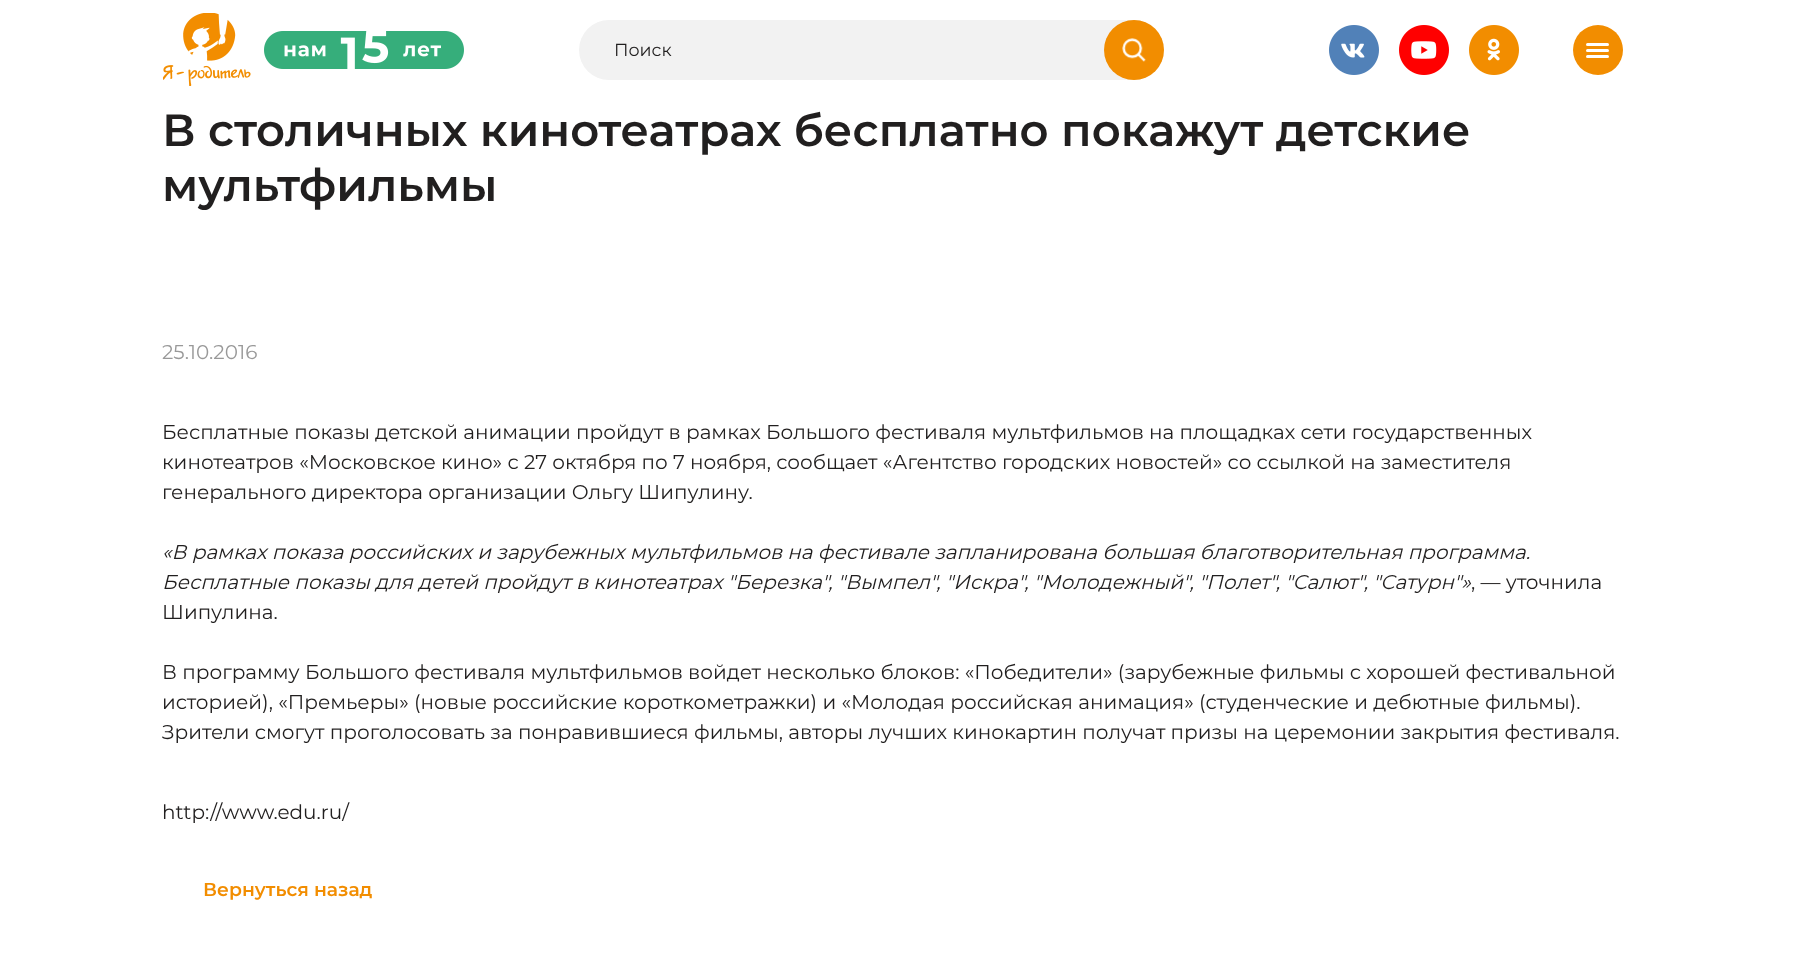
<svg xmlns="http://www.w3.org/2000/svg" width="1802" height="967" viewBox="0 0 1802 967">
  <style>
    .t1 { font: 17.5px Montserrat; fill: #211f1f; }
    .t2 { font: 600 45px Montserrat; fill: #211f1f; }
    .t3 { font: 20px Montserrat; fill: #999; }
    .t4 { font: 20px Montserrat; fill: #211f1f; }
    .t5 { font: italic 20px Montserrat; fill: #211f1f; }
    .t6 { font: 600 18.75px Montserrat; fill: #f28d00; }
  </style>
  <rect width="100%" height="100%" fill="#fff"/>
  <image x="163" y="13" width="88" height="73" href="images/1.png"/>
  <image x="264" y="31" width="200" height="38" href="images/2.png"/>
  <rect x="579" y="20" width="585" height="60" rx="30" fill="#f2f2f2"/>
  <text x="614" y="56" class="t1">Поиск</text>
  <circle cx="1134" cy="50" r="30" fill="#f28d00"/>
  <image x="1122" y="38" width="24" height="24" href="images/3.png"/>
  <image x="1329" y="25" width="50" height="50" href="images/4.png"/>
  <image x="1399" y="25" width="50" height="50" href="images/5.png"/>
  <image x="1469" y="25" width="50" height="50" href="images/6.png"/>
  <circle cx="1598" cy="50" r="25" fill="#f28d00"/>
  <rect x="1586" y="43" width="23" height="3" rx="1.5" fill="#fff"/>
  <rect x="1586" y="49" width="23" height="3" rx="1.5" fill="#fff"/>
  <rect x="1586" y="55" width="23" height="3" rx="1.5" fill="#fff"/>
  <text x="162" y="146" class="t2">В столичных кинотеатрах бесплатно покажут детские</text>
  <text x="162" y="201" class="t2">мультфильмы</text>
  <text x="162" y="359" class="t3">25.10.2016</text>
  <text x="162" y="439" class="t4">Бесплатные показы детской анимации пройдут в рамках Большого фестиваля мультфильмов на площадках сети государственных</text>
  <text x="162" y="469" class="t4">кинотеатров «Московское кино» с 27 октября по 7 ноября, сообщает «Агентство городских новостей» со ссылкой на заместителя</text>
  <text x="162" y="499" class="t4">генерального директора организации Ольгу Шипулину.</text>
  <text x="162" y="559" class="t5">«В рамках показа российских и зарубежных мультфильмов на фестивале запланирована большая благотворительная программа.</text>
  <text x="162" y="589" class="t5">Бесплатные показы для детей пройдут в кинотеатрах "Березка", "Вымпел", "Искра", "Молодежный", "Полет", "Салют", "Сатурн"»</text>
  <text x="1471" y="589" class="t4">, — уточнила</text>
  <text x="162" y="619" class="t4">Шипулина.</text>
  <text x="162" y="679" class="t4">В программу Большого фестиваля мультфильмов войдет несколько блоков: «Победители» (зарубежные фильмы с хорошей фестивальной</text>
  <text x="162" y="709" class="t4">историей), «Премьеры» (новые российские короткометражки) и «Молодая российская анимация» (студенческие и дебютные фильмы).</text>
  <text x="162" y="739" class="t4">Зрители смогут проголосовать за понравившиеся фильмы, авторы лучших кинокартин получат призы на церемонии закрытия фестиваля.</text>
  <text x="162" y="819" class="t4">http://www.edu.ru/</text>
  <text x="203" y="896" class="t6">Вернуться назад</text>
</svg>
